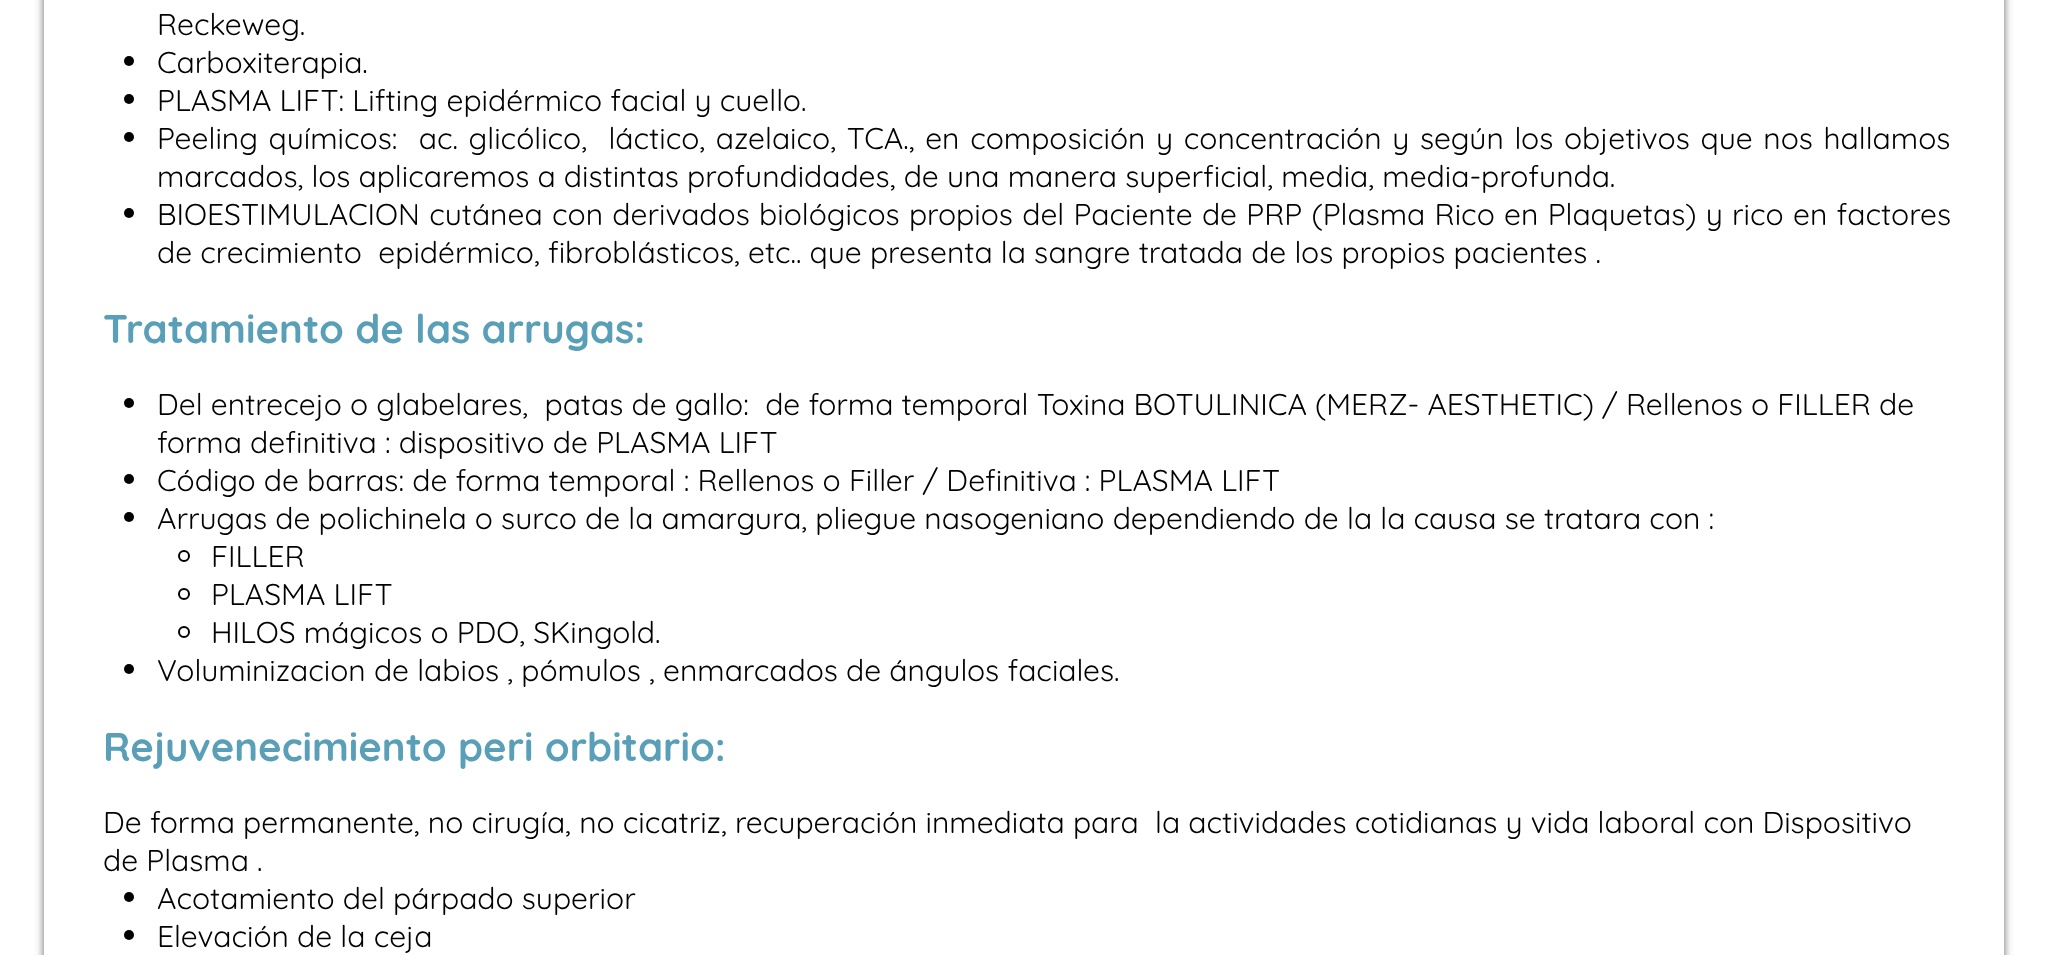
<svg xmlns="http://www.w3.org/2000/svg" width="2045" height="955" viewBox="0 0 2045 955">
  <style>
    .t1 { font: 30px Quicksand; fill: #000; }
    .t2 { font: bold 40px Quicksand; fill: #599fb7; }
  </style>
  <defs>
    <clipPath id="clip1"><path d="M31 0H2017V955H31ZM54-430H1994C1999.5-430 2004-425.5 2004-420V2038C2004 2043.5 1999.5 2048 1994 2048H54C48.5 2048 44 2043.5 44 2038V-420C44-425.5 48.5-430 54-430Z" clip-rule="evenodd"/></clipPath>
  </defs>
  <rect width="100%" height="100%" fill="#fff"/>
  <g clip-path="url(#clip1)">
    <rect x="44" y="-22" width="1960" height="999" rx="10" fill="#00000099" filter="blur(4px)"/>
  </g>
  <text x="157" y="35" class="t1">Reckeweg.</text>
  <circle cx="129" cy="61" r="5" fill="#000"/>
  <text x="157" y="73" class="t1">Carboxiterapia.</text>
  <circle cx="129" cy="99" r="5" fill="#000"/>
  <text x="157" y="111" class="t1">PLASMA LIFT: Lifting epidérmico facial y cuello.</text>
  <circle cx="129" cy="137" r="5" fill="#000"/>
  <text x="157" y="149" word-spacing="2.5" class="t1" xml:space="preserve">Peeling químicos:  ac. glicólico,  láctico, azelaico, TCA., en composición y concentración y según los objetivos que nos hallamos</text>
  <text x="157" y="187" class="t1">marcados, los aplicaremos a distintas profundidades, de una manera superficial, media, media-profunda.</text>
  <circle cx="129" cy="213" r="5" fill="#000"/>
  <text x="157" y="225" word-spacing="1.1" class="t1">BIOESTIMULACION cutánea con derivados biológicos propios del Paciente de PRP (Plasma Rico en Plaquetas) y rico en factores</text>
  <text x="157" y="263" class="t1" xml:space="preserve">de crecimiento  epidérmico, fibroblásticos, etc.. que presenta la sangre tratada de los propios pacientes .</text>
  <text x="103" y="343" class="t2">Tratamiento de las arrugas:</text>
  <circle cx="129" cy="403" r="5" fill="#000"/>
  <text x="157" y="415" class="t1" xml:space="preserve">Del entrecejo o glabelares,  patas de gallo:  de forma temporal Toxina BOTULINICA (MERZ- AESTHETIC) / Rellenos o FILLER de</text>
  <text x="157" y="453" class="t1">forma definitiva : dispositivo de PLASMA LIFT</text>
  <circle cx="129" cy="479" r="5" fill="#000"/>
  <text x="157" y="491" class="t1">Código de barras: de forma temporal : Rellenos o Filler / Definitiva : PLASMA LIFT</text>
  <circle cx="129" cy="517" r="5" fill="#000"/>
  <text x="157" y="529" class="t1">Arrugas de polichinela o surco de la amargura, pliegue nasogeniano dependiendo de la la causa se tratara con :</text>
  <circle cx="184" cy="556" r="5" fill="none" stroke="#000" stroke-width="2"/>
  <text x="211" y="567" class="t1">FILLER</text>
  <circle cx="184" cy="594" r="5" fill="none" stroke="#000" stroke-width="2"/>
  <text x="211" y="605" class="t1">PLASMA LIFT</text>
  <circle cx="184" cy="632" r="5" fill="none" stroke="#000" stroke-width="2"/>
  <text x="211" y="643" class="t1">HILOS mágicos o PDO, SKingold.</text>
  <circle cx="129" cy="669" r="5" fill="#000"/>
  <text x="157" y="681" class="t1">Voluminizacion de labios , pómulos , enmarcados de ángulos faciales.</text>
  <text x="103" y="761" class="t2">Rejuvenecimiento peri orbitario:</text>
  <text x="103" y="833" class="t1" xml:space="preserve">De forma permanente, no cirugía, no cicatriz, recuperación inmediata para  la actividades cotidianas y vida laboral con Dispositivo</text>
  <text x="103" y="871" class="t1">de Plasma .</text>
  <circle cx="129" cy="897" r="5" fill="#000"/>
  <text x="157" y="909" class="t1">Acotamiento del párpado superior</text>
  <circle cx="129" cy="935" r="5" fill="#000"/>
  <text x="157" y="947" class="t1">Elevación de la ceja</text>
</svg>
